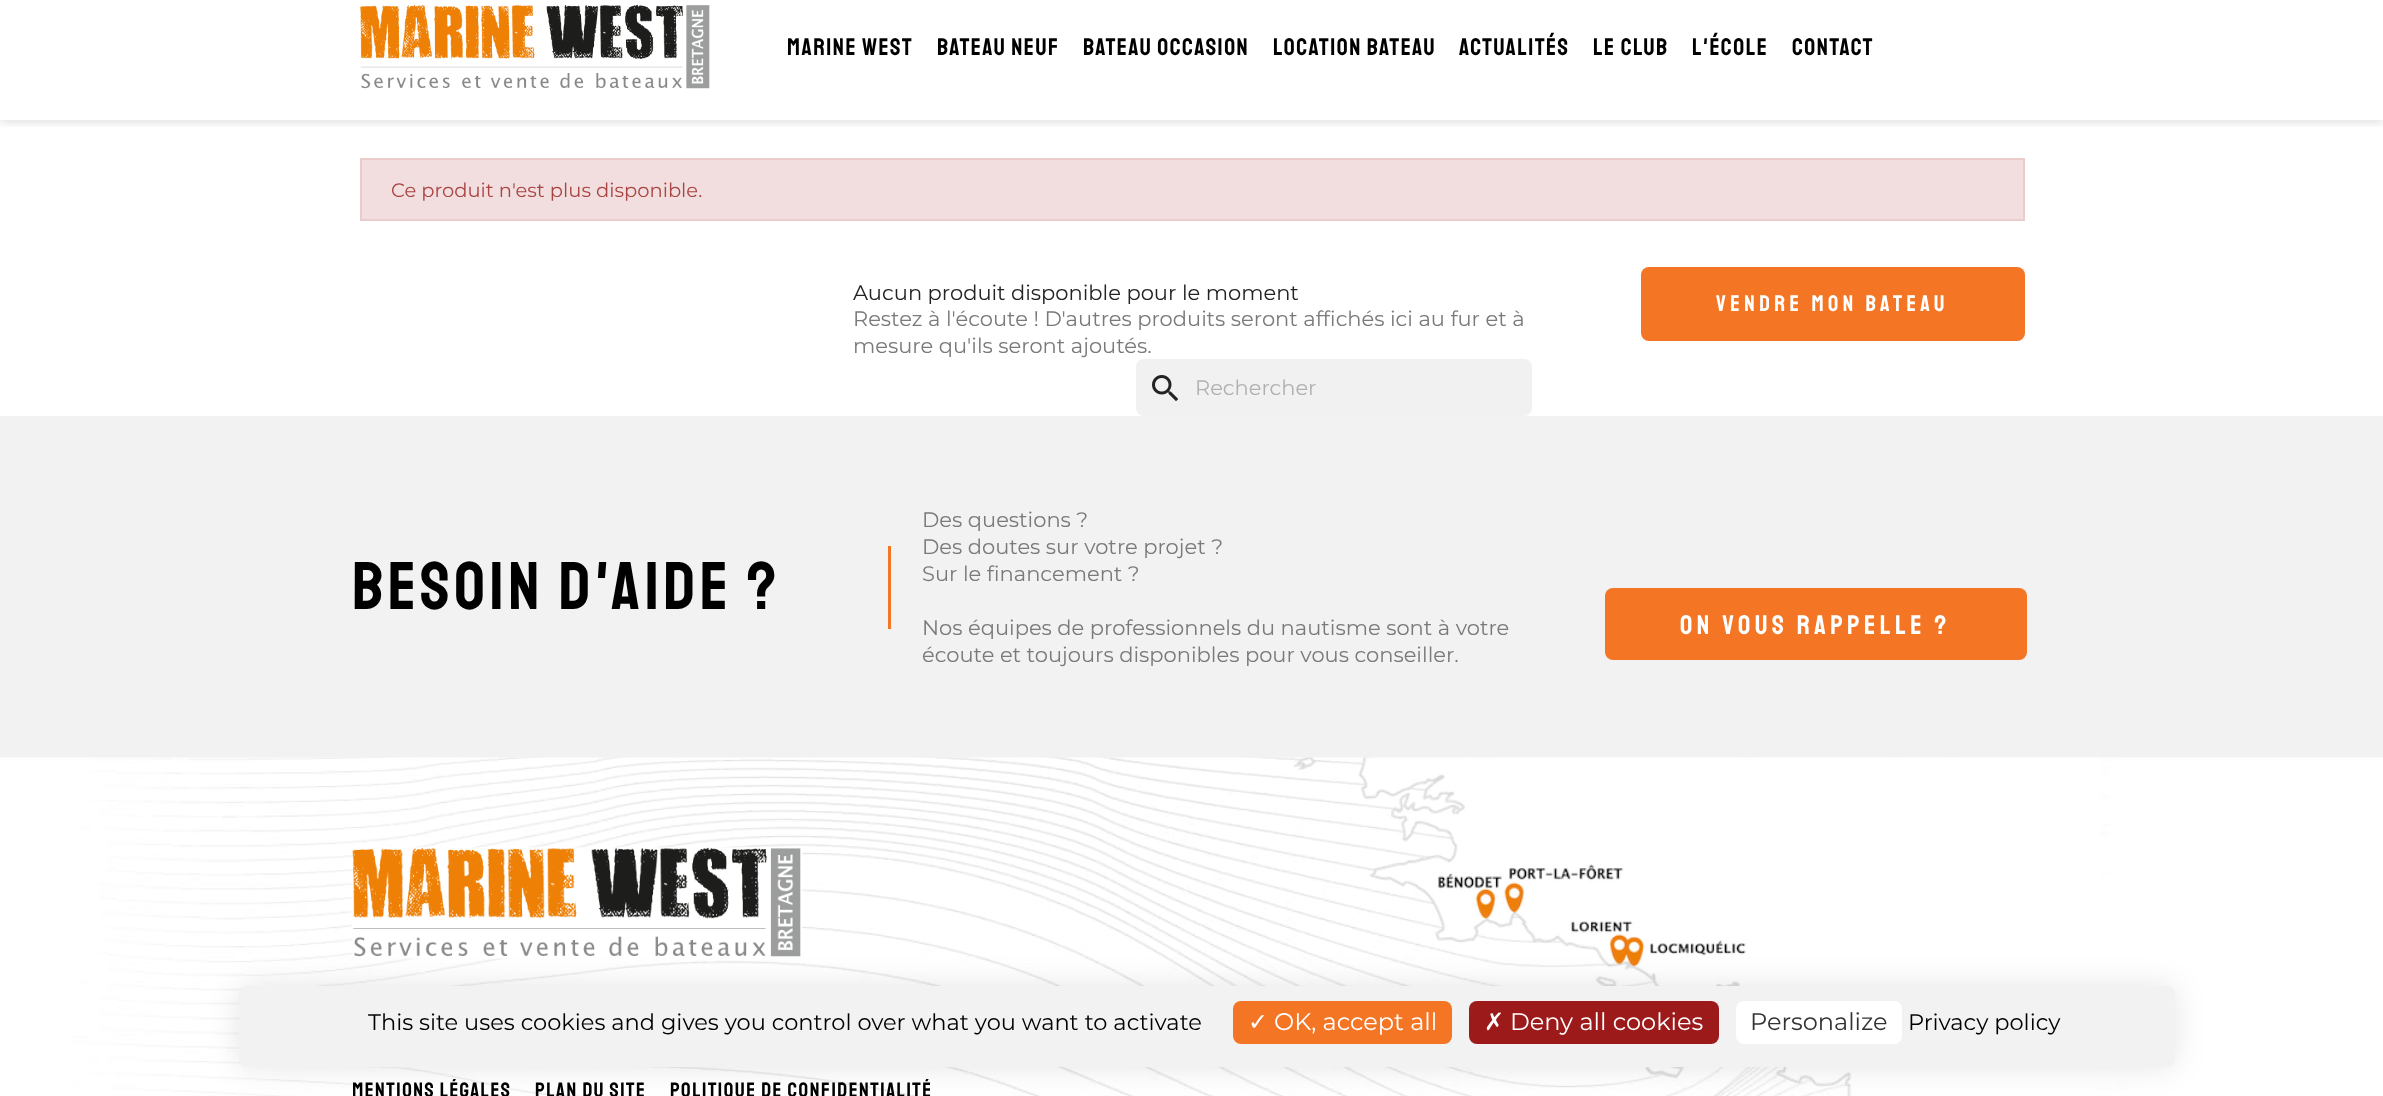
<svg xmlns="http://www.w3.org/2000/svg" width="2383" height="1096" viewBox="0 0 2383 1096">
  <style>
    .t1 { font: 24px Staatliches; letter-spacing: 1.5px; fill: #000; }
    .t2 { font: 19.5px Montserrat; fill: #a94442; }
    .t3 { font: 21px Montserrat; fill: #232323; }
    .t4 { font: 21px Montserrat; fill: #7a7a7a; }
    .t5 { font: 21px Montserrat; fill: #b1b1b1; }
    .t6 { font: 22.5px Staatliches; letter-spacing: 4.5px; fill: #fff; }
    .t7 { font: 67.5px Staatliches; letter-spacing: 4.5px; fill: #000; }
    .t8 { font: 27px Staatliches; letter-spacing: 4.5px; fill: #fff; }
    .t9 { font: 21px Staatliches; letter-spacing: 1.5px; fill: #000; }
    .t10 { font: 22.5px Montserrat; fill: #000; }
    .t11 { font: 24px DejaVu Sans; fill: #fff; }
    .t12 { font: 24px Montserrat; fill: #fff; }
    .t13 { font: 24px Montserrat; fill: #333; }
  </style>
  <defs>
    <clipPath id="clip1"><rect x="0" y="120" width="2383" height="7"/></clipPath>
    <clipPath id="clip2"><rect x="353" y="1079" width="825" height="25"/></clipPath>
  </defs>
  <rect width="100%" height="100%" fill="#fff"/>
  <g clip-path="url(#clip1)">
    <rect x="0" y="-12" width="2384" height="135" fill="#0000001c" filter="blur(4px)"/>
  </g>
  <image x="360" y="4" width="350" height="85" href="images/1.png"/>
  <text x="787" y="55" class="t1">MARINE WEST</text>
  <text x="937" y="55" class="t1">BATEAU NEUF</text>
  <text x="1083" y="55" class="t1">BATEAU OCCASION</text>
  <text x="1273" y="55" class="t1">LOCATION BATEAU</text>
  <text x="1459" y="55" class="t1">ACTUALITÉS</text>
  <text x="1593" y="55" class="t1">LE CLUB</text>
  <text x="1692" y="55" class="t1">L'ÉCOLE</text>
  <text x="1792" y="55" class="t1">CONTACT</text>
  <rect x="361" y="159" width="1663" height="61" fill="#f2dede" stroke="#ebcccc" stroke-width="2"/>
  <text x="391" y="197" class="t2">Ce produit n'est plus disponible.</text>
  <text x="853" y="300" class="t3">Aucun produit disponible pour le moment</text>
  <text x="853" y="326" class="t4">Restez à l'écoute ! D'autres produits seront affichés ici au fur et à</text>
  <text x="853" y="353" class="t4">mesure qu'ils seront ajoutés.</text>
  <rect x="1136" y="359" width="396" height="57" rx="8" fill="#f1f1f1"/>
  <image x="1152" y="375" width="27" height="27" href="images/2.png"/>
  <text x="1195" y="395" class="t5">Rechercher</text>
  <rect x="1641" y="267" width="384" height="74" rx="8" fill="#f47625"/>
  <text x="1716" y="311" class="t6">vendre mon bateau</text>
  <rect x="0" y="416" width="2383" height="342" fill="#f2f2f2"/>
  <rect x="888" y="546" width="3" height="83" fill="#f47625"/>
  <text x="352" y="609" class="t7">besoin d'aide ?</text>
  <text x="922" y="527" class="t4">Des questions ?</text>
  <text x="922" y="554" class="t4">Des doutes sur votre projet ?</text>
  <text x="922" y="581" class="t4">Sur le financement ?</text>
  <text x="922" y="635" class="t4">Nos équipes de professionnels du nautisme sont à votre</text>
  <text x="922" y="662" class="t4">écoute et toujours disponibles pour vous conseiller.</text>
  <rect x="1605" y="588" width="422" height="72" rx="8" fill="#f47625"/>
  <text x="1680" y="634" class="t8">ON VOUS RAPPELLE ?</text>
  <image x="0" y="757" width="2383" height="339" href="images/3.png"/>
  <image x="352" y="847" width="451" height="112" href="images/4.png"/>
  <g clip-path="url(#clip2)">
    <text x="352" y="1097" class="t9">mentions légales</text>
  </g>
  <text x="535" y="1097" class="t9">plan du site</text>
  <g clip-path="url(#clip2)">
    <text x="670" y="1097" class="t9">politique de confidentialité</text>
  </g>
  <image x="1293" y="757" width="807" height="339" href="images/5.png"/>
  <rect x="239" y="986" width="1936" height="81" rx="8" fill="#0000001a" filter="blur(15px)"/>
  <rect x="239" y="986" width="1936" height="81" rx="8" fill="#f2f2f2"/>
  <text x="368" y="1030" class="t10">This site uses cookies and gives you control over what you want to activate</text>
  <rect x="1233" y="1001" width="219" height="43" rx="8" fill="#f47625"/>
  <text x="1248" y="1030" class="t11">✓</text>
  <text x="1274" y="1030" class="t12">OK, accept all</text>
  <rect x="1469" y="1001" width="250" height="43" rx="8" fill="#9c1a1a"/>
  <text x="1484" y="1030" class="t11">✗</text>
  <text x="1510" y="1030" class="t12">Deny all cookies</text>
  <rect x="1736" y="1001" width="166" height="43" rx="8" fill="#fff"/>
  <text x="1750" y="1030" class="t13">Personalize</text>
  <text x="1908" y="1030" class="t10">Privacy policy</text>
</svg>
